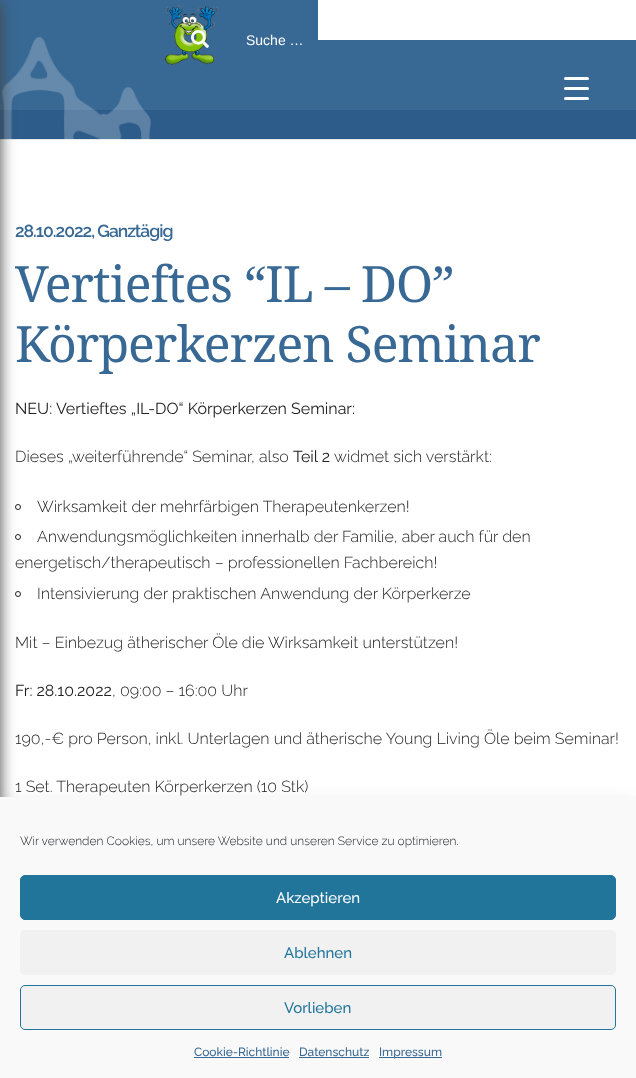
<svg xmlns="http://www.w3.org/2000/svg" width="636" height="1078" viewBox="0 0 636 1078">
  <style>
    .t1 { font: 14px Liberation Sans; fill: #fff; }
    .t2 { font: 100 17.5px Raleway; letter-spacing: -1px; fill: #386894; }
    .t3 { font: 50px Noto Serif; letter-spacing: -1px; fill: #386894; }
    .t4 { font: 100 16px 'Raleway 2'; fill: #212121; }
    .t5 { font: 100 16px 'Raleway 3'; fill: #212121; }
    .t6 { font: 100 12px 'Raleway 3'; fill: #191e23; }
    .t7 { font: 100 15px 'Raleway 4'; fill: #fff; }
    .t8 { font: 100 15px 'Raleway 4'; fill: #21759b; }
    .t9 { font: 100 12px 'Raleway 4'; fill: #386894; }
  </style>
  <rect width="100%" height="100%" fill="#386894"/>
  <rect x="0" y="110" width="636" height="29" fill="#2d5c8a"/>
  <rect x="0" y="139" width="636" height="1" fill="#e7e7e7"/>
  <image x="2" y="36" width="149" height="104" href="images/3.png"/>
  <rect x="0" y="140" width="636" height="657" fill="#fff"/>
  <circle cx="18" cy="507" r="2.5" fill="none" stroke="#212121"/>
  <circle cx="18" cy="537" r="2.5" fill="none" stroke="#212121"/>
  <circle cx="18" cy="594" r="2.5" fill="none" stroke="#212121"/>
  <rect x="-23" y="3" width="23" height="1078" fill="#444" filter="blur(7.5px)"/>
  <rect x="318" y="0" width="318" height="40" fill="#fff"/>
  <image x="165" y="5" width="53" height="60" href="images/2.png"/>
  <image x="191" y="30" width="18" height="18" href="images/1.png"/>
  <text x="246" y="45" class="t1">Suche …</text>
  <text x="15" y="237" class="t2">28.10.2022, Ganztägig</text>
  <text x="15" y="302" class="t3">Vertieftes “IL – DO”</text>
  <text x="15" y="362" class="t3">Körperkerzen Seminar</text>
  <text x="15" y="414" class="t4">NEU:</text>
  <text x="56" y="414" class="t4">Vertieftes „IL-DO“ Körperkerzen Seminar:</text>
  <text x="15" y="462" class="t5">Dieses „weiterführende“ Seminar, also</text>
  <text x="293" y="462" class="t4">Teil 2</text>
  <text x="334" y="462" class="t5">widmet sich verstärkt:</text>
  <text x="37" y="512" class="t5">Wirksamkeit der mehrfärbigen Therapeutenkerzen!</text>
  <text x="37" y="542" class="t5">Anwendungsmöglichkeiten innerhalb der Familie, aber auch für den</text>
  <text x="15" y="568" class="t5">energetisch/therapeutisch – professionellen Fachbereich!</text>
  <text x="37" y="599" class="t5">Intensivierung der praktischen Anwendung der Körperkerze</text>
  <text x="15" y="648" class="t5">Mit – Einbezug ätherischer Öle die Wirksamkeit unterstützen!</text>
  <text x="15" y="696" class="t4">Fr: 28.10.2022</text>
  <text x="112" y="696" class="t5">, 09:00 – 16:00 Uhr</text>
  <text x="15" y="744" class="t5">190,-€ pro Person, inkl. Unterlagen und ätherische Young Living Öle beim Seminar!</text>
  <text x="15" y="792" class="t5">1 Set. Therapeuten Körperkerzen (10 Stk)</text>
  <rect x="564" y="87" width="25" height="3" rx="1.5" fill="#fff"/>
  <rect x="564" y="77" width="25" height="3" rx="1.5" fill="#fff"/>
  <rect x="564" y="97" width="25" height="3" rx="1.5" fill="#fff"/>
  <rect x="0" y="807" width="636" height="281" fill="#00000030" filter="blur(10px)"/>
  <rect x="0" y="797" width="636" height="281" fill="#f9f9f9"/>
  <text x="20" y="845" class="t6">Wir verwenden Cookies, um unsere Website und unseren Service zu optimieren.</text>
  <rect x="20.5" y="875.5" width="595" height="44" rx="4.5" fill="#21759b" stroke="#21759b"/>
  <text x="276" y="903" class="t7">Akzeptieren</text>
  <rect x="20" y="930" width="596" height="45" rx="5" fill="#f1f1f1"/>
  <text x="284" y="958" class="t8">Ablehnen</text>
  <rect x="20.5" y="985.5" width="595" height="44" rx="4.5" fill="#f1f1f1" stroke="#21759b"/>
  <text x="284" y="1013" class="t8">Vorlieben</text>
  <text x="194" y="1056" class="t9">Cookie-Richtlinie</text>
  <rect x="194" y="1057" width="95" height="1" fill="#386894"/>
  <text x="299" y="1056" class="t9">Datenschutz</text>
  <rect x="299" y="1057" width="70" height="1" fill="#386894"/>
  <rect x="379" y="1057" width="63" height="1" fill="#386894"/>
  <text x="379" y="1056" class="t9">Impressum</text>
</svg>
